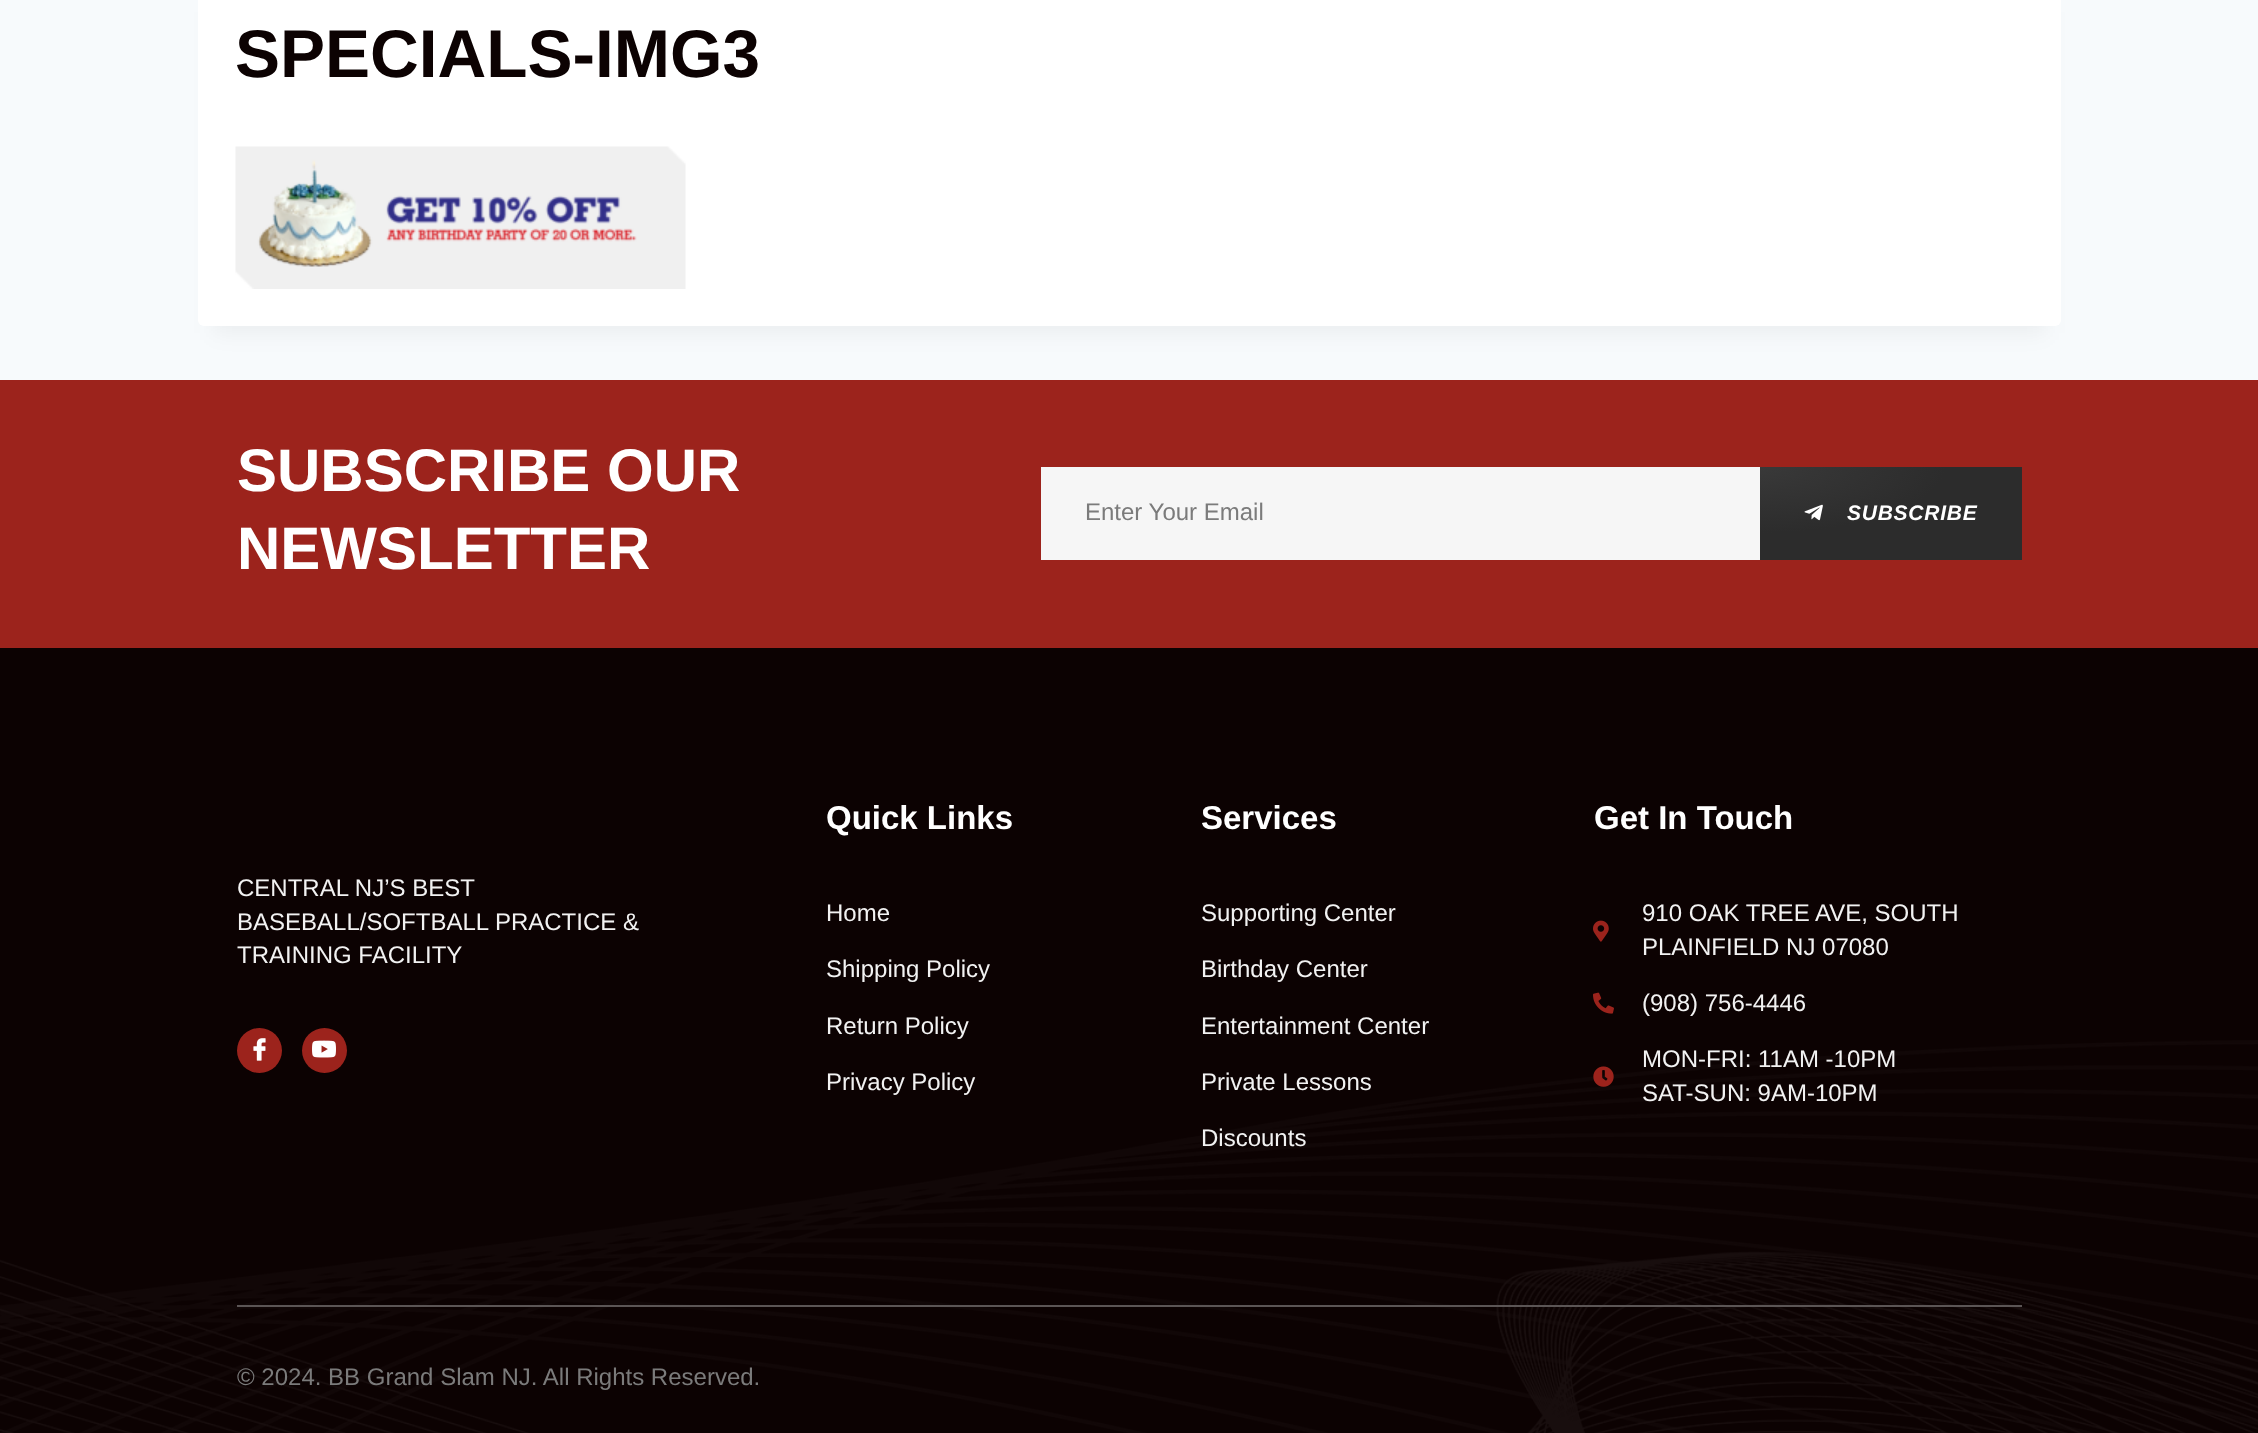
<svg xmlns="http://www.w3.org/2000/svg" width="2258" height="1433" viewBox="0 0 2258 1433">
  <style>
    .t1 { font: bold 67.5px Liberation Sans; fill: #0c0202; }
    .t2 { font: bold 60px Liberation Sans; fill: #fff; }
    .t3 { font: 24px Liberation Sans; fill: #7b7b7b; }
    .t4 { font: italic bold 21px Liberation Sans; letter-spacing: 0.75px; fill: #fff; }
    .t5 { font: 24px Liberation Sans; fill: #f2f2f2; }
    .t6 { font: bold 33px Liberation Sans; fill: #fff; }
  </style>
  <defs>
    <radialGradient id="g1" gradientUnits="userSpaceOnUse" cx="0" cy="0" r="1" gradientTransform="matrix(371 0 0 132 1760 467)"><stop offset="0" stop-color="#393939"/><stop offset="0.5" stop-color="#2c2c2c"/></radialGradient>
  </defs>
  <rect width="100%" height="100%" fill="#f7fafc"/>
  <rect x="213" y="12" width="1833" height="321" fill="#0000000d" filter="blur(11px)"/>
  <rect x="198" y="-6" width="1863" height="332" rx="6" fill="#fff"/>
  <text x="235" y="77" class="t1">SPECIALS-IMG3</text>
  <image x="235" y="146" width="451" height="143" href="images/1.png"/>
  <rect x="0" y="380" width="2258" height="268" fill="#9c231c"/>
  <text x="237" y="491" class="t2">SUBSCRIBE OUR</text>
  <text x="237" y="569" class="t2">NEWSLETTER</text>
  <rect x="1041" y="467" width="719" height="93" fill="#f6f6f6"/>
  <text x="1085" y="520" class="t3">Enter Your Email</text>
  <rect x="1760" y="467" width="262" height="93" fill="url(#g1)"/>
  <image x="1804" y="504" width="19" height="17" href="images/2.png"/>
  <text x="1847" y="520" class="t4">SUBSCRIBE</text>
  <rect x="0" y="648" width="2258" height="785" fill="#0c0202"/>
  <image x="0" y="1040" width="2258" height="393" href="images/8.png"/>
  <rect x="237" y="1305" width="1785" height="2" fill="#5b5555"/>
  <text x="237" y="896" class="t5">CENTRAL NJ’S BEST</text>
  <text x="237" y="930" class="t5">BASEBALL/SOFTBALL PRACTICE &amp;</text>
  <text x="237" y="963" class="t5">TRAINING FACILITY</text>
  <circle cx="259.5" cy="1050.5" r="22.5" fill="#9c231c"/>
  <image x="253" y="1038" width="13" height="23" href="images/3.png"/>
  <circle cx="324.5" cy="1050.5" r="22.5" fill="#9c231c"/>
  <image x="312" y="1040" width="24" height="18" href="images/4.png"/>
  <text x="826" y="829" class="t6">Quick Links</text>
  <text x="826" y="921" class="t5">Home</text>
  <text x="826" y="977" class="t5">Shipping Policy</text>
  <text x="826" y="1034" class="t5">Return Policy</text>
  <text x="826" y="1090" class="t5">Privacy Policy</text>
  <text x="1201" y="829" class="t6">Services</text>
  <text x="1201" y="921" class="t5">Supporting Center</text>
  <text x="1201" y="977" class="t5">Birthday Center</text>
  <text x="1201" y="1034" class="t5">Entertainment Center</text>
  <text x="1201" y="1090" class="t5">Private Lessons</text>
  <text x="1201" y="1146" class="t5">Discounts</text>
  <text x="1594" y="829" class="t6">Get In Touch</text>
  <image x="1593" y="920" width="16" height="22" href="images/5.png"/>
  <text x="1642" y="921" class="t5">910 OAK TREE AVE, SOUTH</text>
  <text x="1642" y="955" class="t5">PLAINFIELD NJ 07080</text>
  <image x="1593" y="992" width="21" height="22" href="images/6.png"/>
  <text x="1642" y="1011" class="t5">(908) 756-4446</text>
  <image x="1593" y="1066" width="21" height="21" href="images/7.png"/>
  <text x="1642" y="1067" class="t5">MON-FRI: 11AM -10PM</text>
  <text x="1642" y="1101" class="t5">SAT-SUN: 9AM-10PM</text>
  <text x="237" y="1385" class="t3">© 2024. BB Grand Slam NJ. All Rights Reserved.</text>
</svg>
